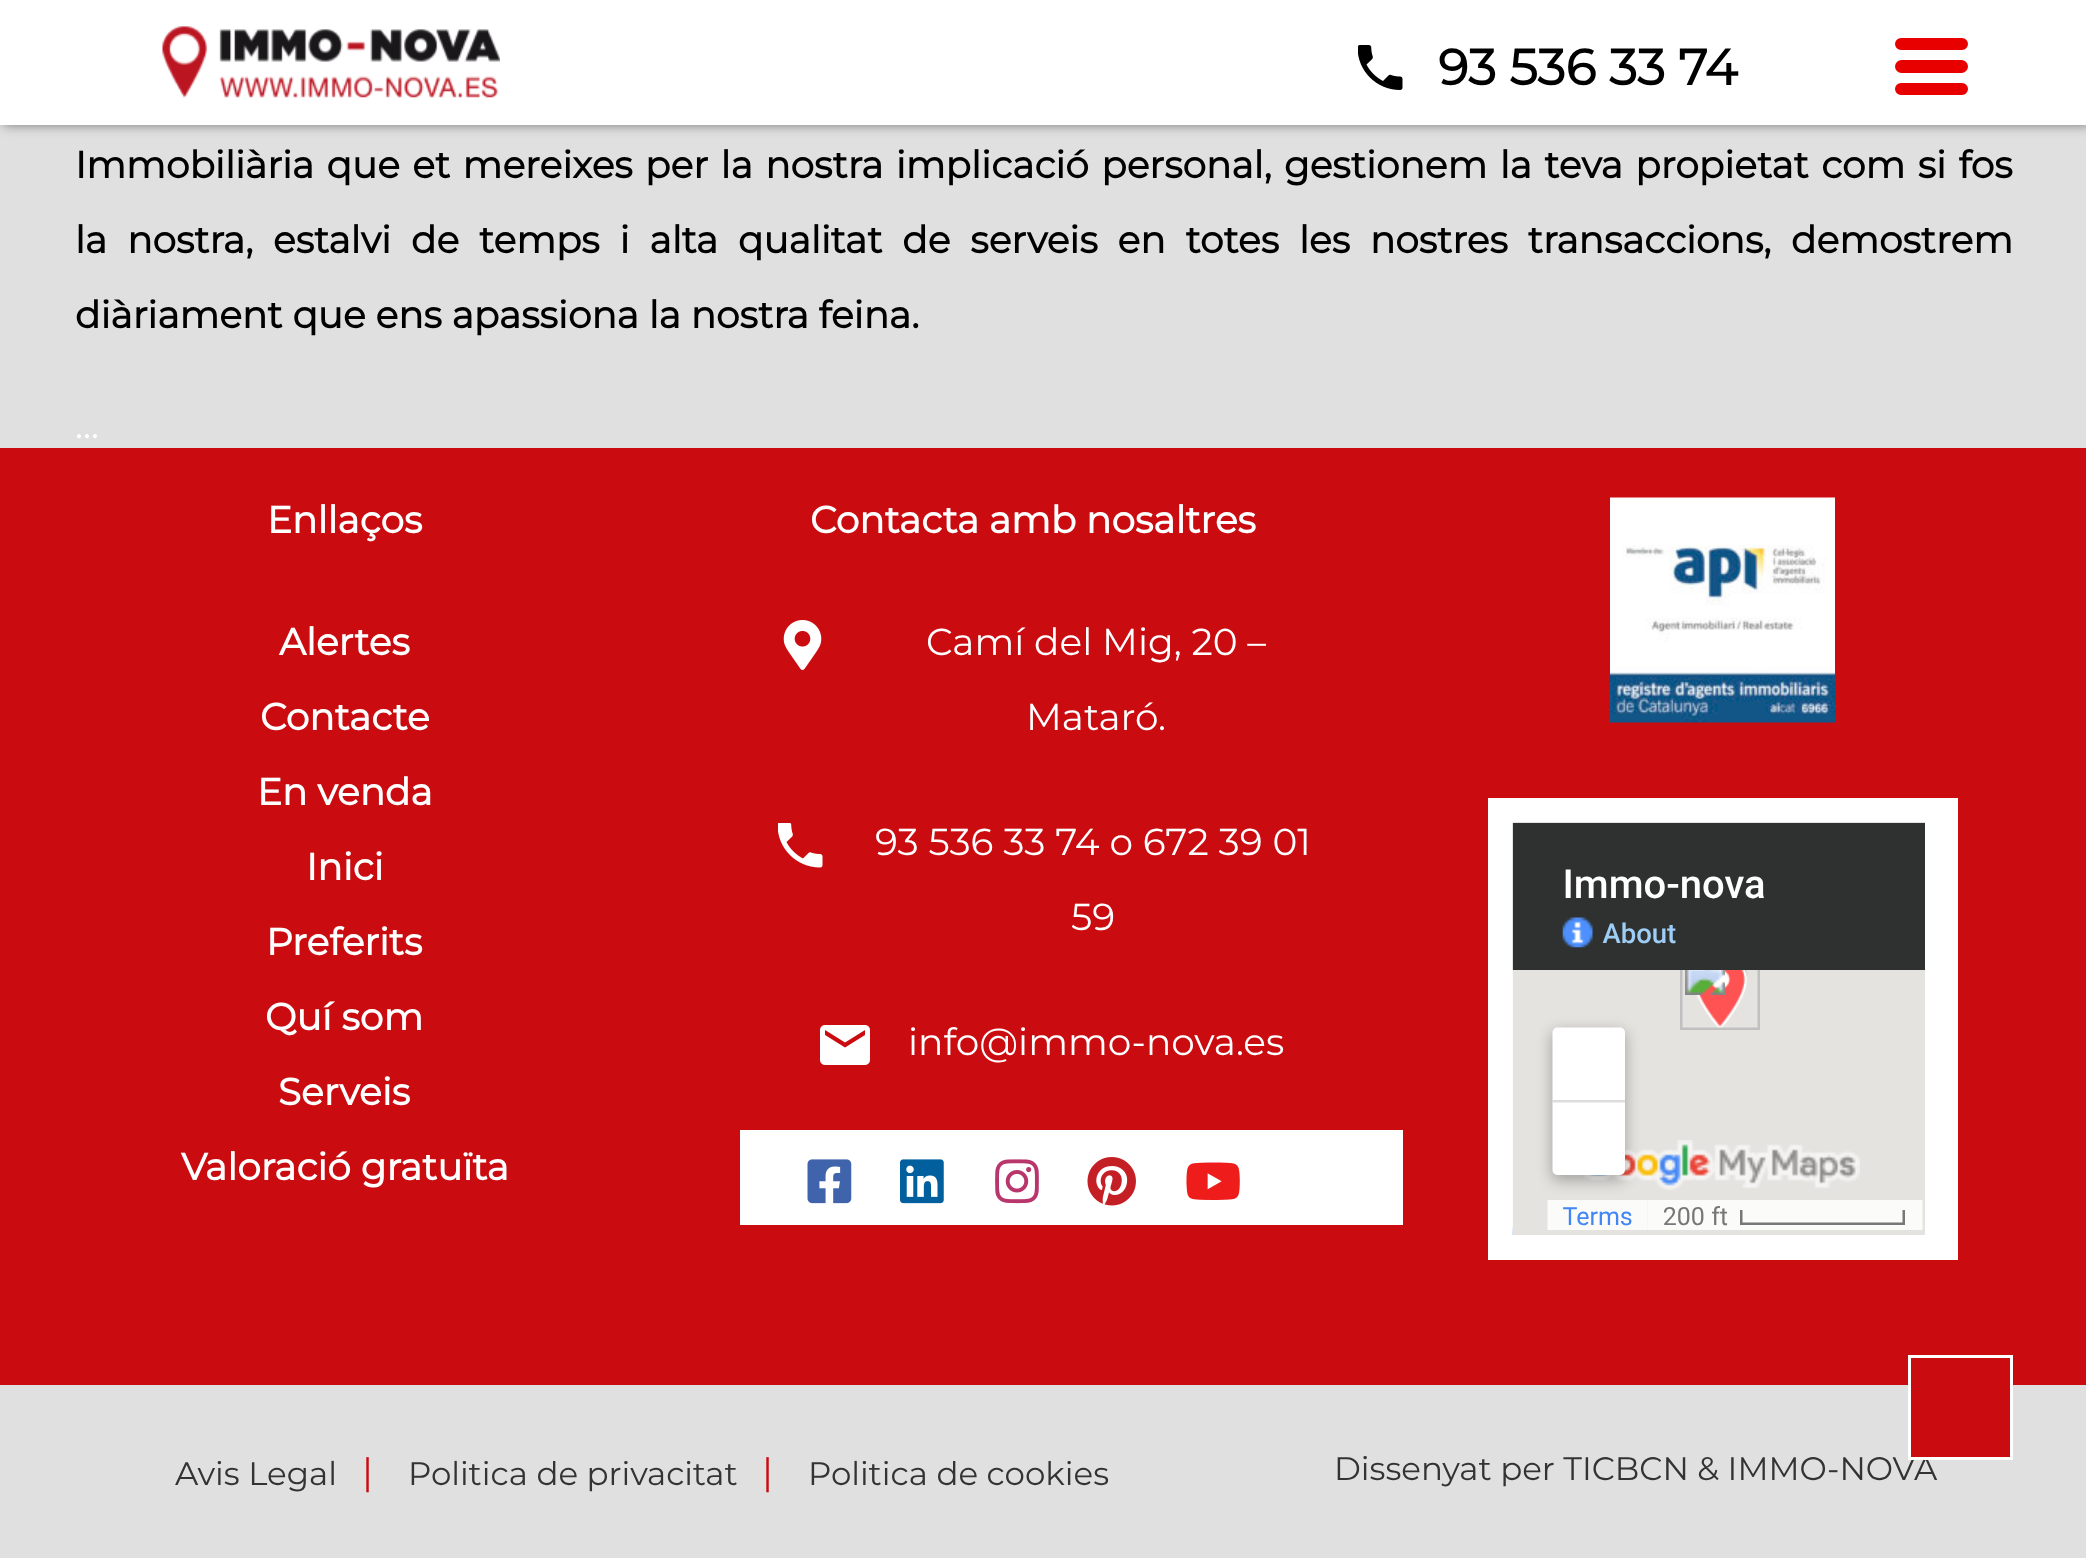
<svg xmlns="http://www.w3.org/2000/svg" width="2086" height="1558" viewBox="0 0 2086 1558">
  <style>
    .t1 { font: bold 50px Montserrat; fill: #000; }
    .t2 { font: bold 37.5px Montserrat; fill: #000; }
    .t3 { font: 100 37.5px Montserrat; fill: #fff; }
    .t4 { font: bold 37.5px Montserrat; fill: #fff; }
    .t5 { font: 100 32.5px Montserrat; fill: #333; }
    .t6 { font: 100 37.5px Montserrat; fill: #ca0b10; }
  </style>
  <rect width="100%" height="100%" fill="#e0e0e0"/>
  <rect x="3" y="0" width="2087" height="125" fill="#777" filter="blur(6px)"/>
  <rect x="0" y="0" width="2086" height="125" fill="#fff"/>
  <image x="162" y="26" width="338" height="72" href="images/1.png"/>
  <image x="1358" y="45" width="45" height="45" href="images/2.png"/>
  <text x="1438" y="85" class="t1">93 536 33 74</text>
  <rect x="1897.5" y="62.5" width="68" height="8" rx="4" fill="#e80000" stroke="#e80000" stroke-width="5"/>
  <rect x="1897.5" y="40.5" width="68" height="7" rx="3.5" fill="#e80000" stroke="#e80000" stroke-width="5"/>
  <rect x="1897.5" y="85.5" width="68" height="7" rx="3.5" fill="#e80000" stroke="#e80000" stroke-width="5"/>
  <text x="75" y="178" word-spacing="2.6" class="t2">Immobiliària que et mereixes per la nostra implicació personal, gestionem la teva propietat com si fos</text>
  <text x="75" y="253" word-spacing="10.1" class="t2">la nostra, estalvi de temps i alta qualitat de serveis en totes les nostres transaccions, demostrem</text>
  <text x="75" y="328" class="t2">diàriament que ens apassiona la nostra feina.</text>
  <text x="75" y="438" class="t3">...</text>
  <rect x="0" y="448" width="2086" height="937" fill="#ca0b10"/>
  <text x="267" y="533" class="t4">Enllaços</text>
  <text x="279" y="655" class="t4">Alertes</text>
  <text x="260" y="730" class="t4">Contacte</text>
  <text x="257" y="805" class="t4">En venda</text>
  <text x="306" y="880" class="t4">Inici</text>
  <text x="266" y="955" class="t4">Preferits</text>
  <text x="265" y="1030" class="t4">Quí som</text>
  <text x="278" y="1105" class="t4">Serveis</text>
  <text x="181" y="1180" class="t4">Valoració gratuïta</text>
  <text x="810" y="533" class="t4">Contacta amb nosaltres</text>
  <image x="783" y="620" width="39" height="50" href="images/3.png"/>
  <text x="926" y="655" class="t3">Camí del Mig, 20 –</text>
  <text x="1026" y="730" class="t3">Mataró.</text>
  <image x="778" y="823" width="45" height="45" href="images/4.png"/>
  <text x="875" y="855" class="t3">93 536 33 74 o 672 39 01</text>
  <text x="1071" y="930" class="t3">59</text>
  <image x="820" y="1025" width="50" height="40" href="images/5.png"/>
  <text x="908" y="1055" class="t3">info@immo-nova.es</text>
  <rect x="740" y="1130" width="663" height="95" fill="#fff"/>
  <image x="807" y="1159" width="45" height="45" href="images/6.png"/>
  <image x="900" y="1159" width="44" height="45" href="images/7.png"/>
  <image x="995" y="1159" width="44" height="45" href="images/8.png"/>
  <image x="1087" y="1157" width="49" height="49" href="images/9.png"/>
  <image x="1186" y="1162" width="54" height="38" href="images/10.png"/>
  <image x="1610" y="497" width="225" height="226" href="images/11.png"/>
  <rect x="1488" y="798" width="470" height="462" fill="#fff"/>
  <image x="1512" y="822" width="413" height="413" href="images/12.png"/>
  <text x="175" y="1485" class="t5">Avis Legal</text>
  <text x="362" y="1485" class="t6">|</text>
  <text x="408" y="1485" class="t5">Politica de privacitat</text>
  <text x="762" y="1485" class="t6">|</text>
  <text x="808" y="1485" class="t5">Politica de cookies</text>
  <text x="1334" y="1480" class="t5">Dissenyat per TICBCN &amp; IMMO-NOVA</text>
  <rect x="1911" y="1385" width="99" height="72" fill="#ca0b10"/>
  <rect x="1909.5" y="1356.5" width="102" height="102" fill="none" stroke="#fff" stroke-width="3"/>
</svg>
